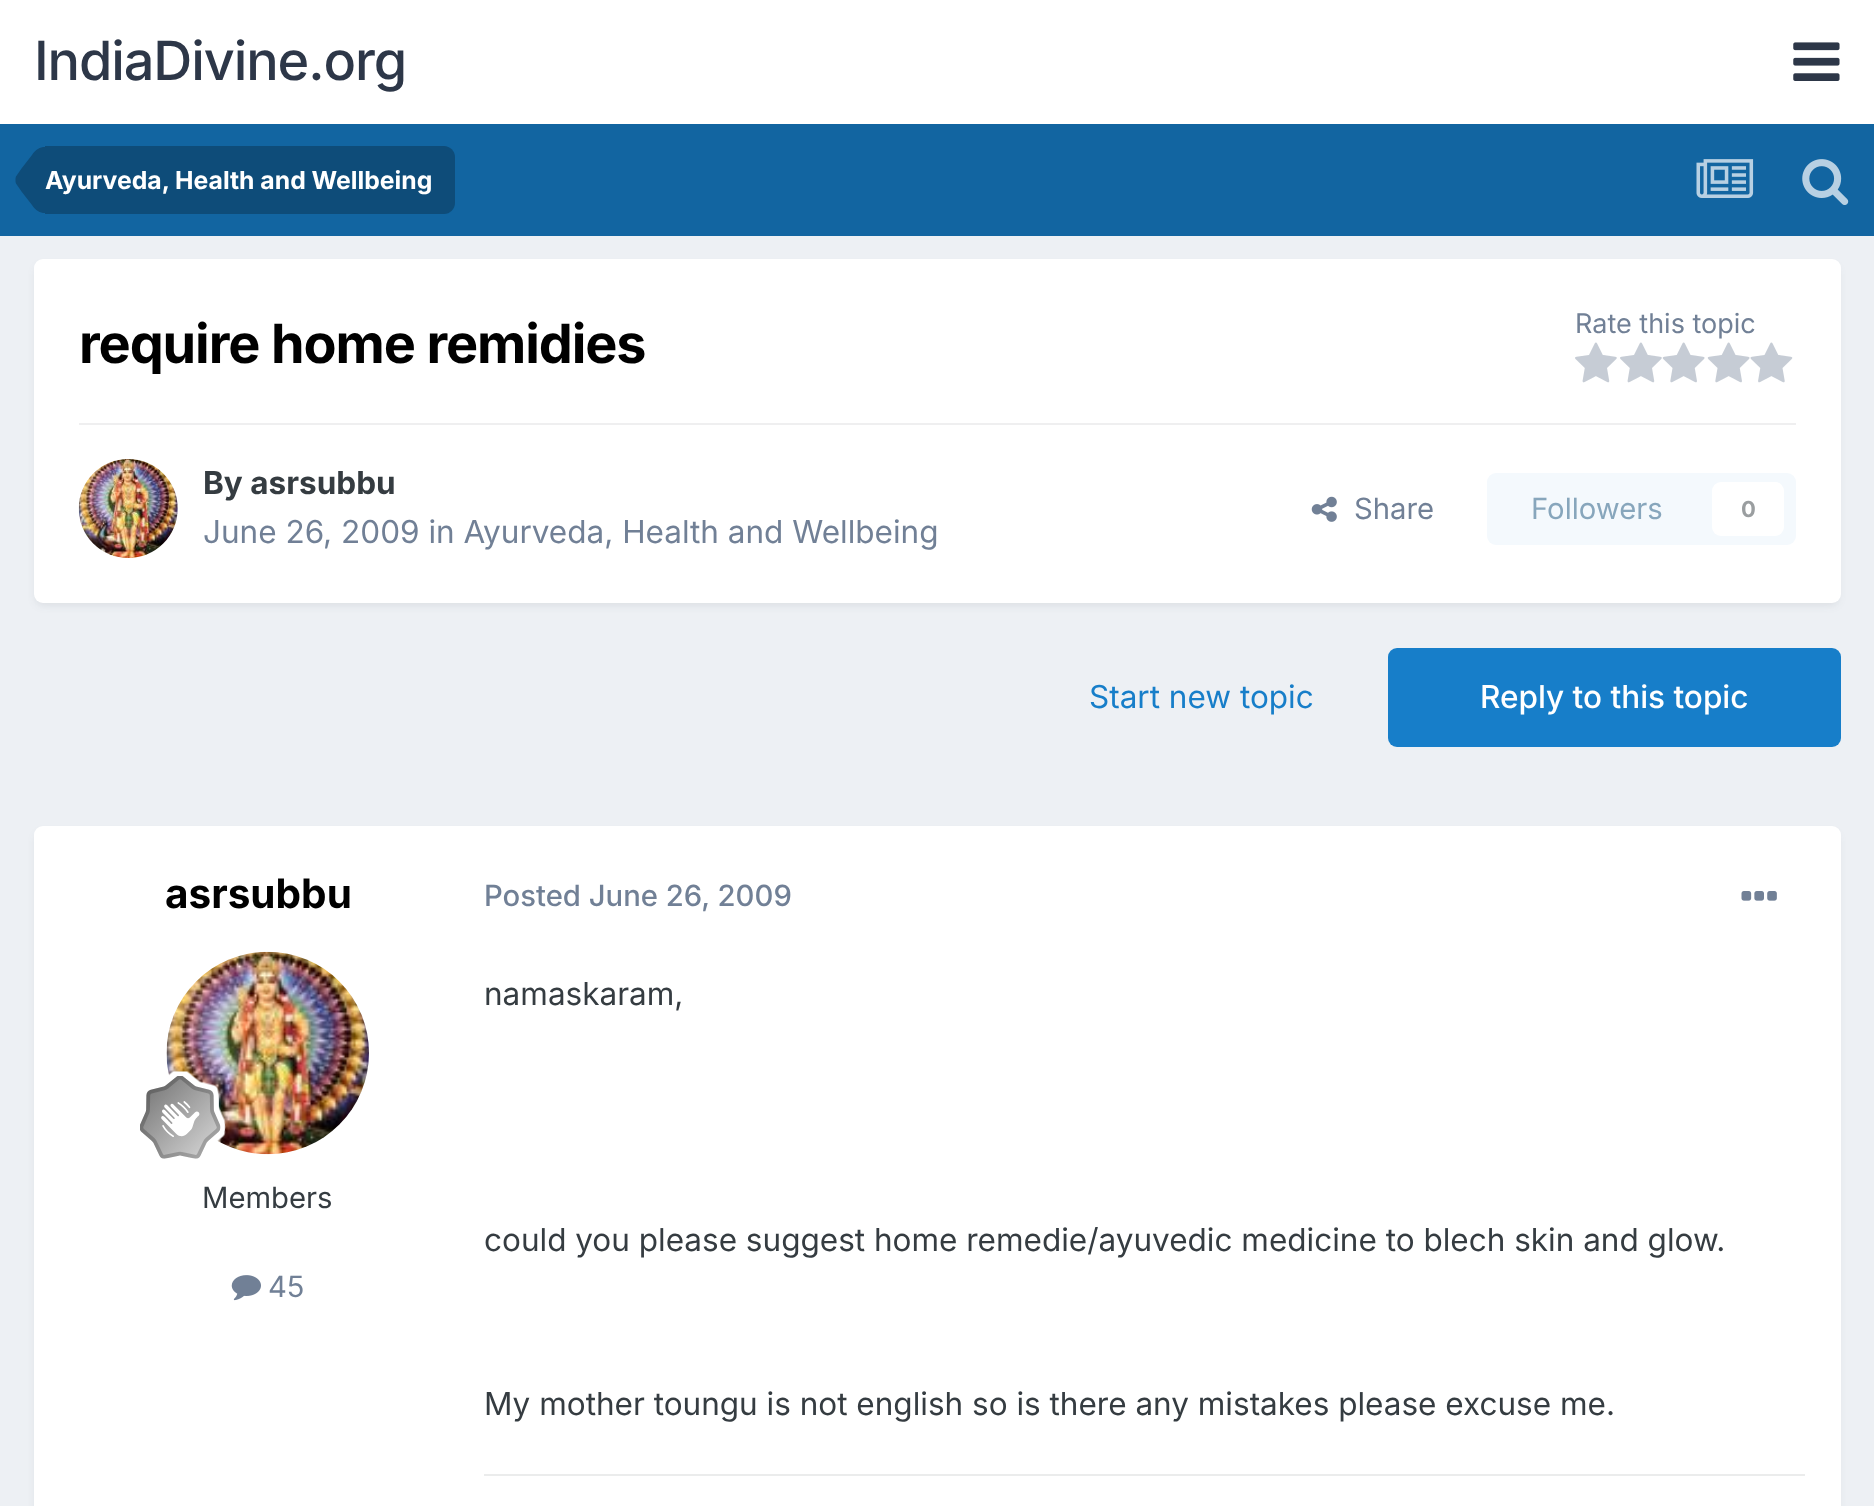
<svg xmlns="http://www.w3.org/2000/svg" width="1874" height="1506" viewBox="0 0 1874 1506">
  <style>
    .t1 { font: 500 54px Inter; letter-spacing: -1.1px; fill: #2d3748; }
    .t2 { font: bold 24.75px Inter; fill: #fff; }
    .t3 { font: bold 54px Inter; letter-spacing: -1.1px; fill: #000; }
    .t4 { font: 27px Inter; fill: #718096; }
    .t5 { font: bold 31.5px Inter; fill: #353c41; }
    .t6 { font: 31.5px Inter; fill: #718096; }
    .t7 { font: 29.25px Inter; fill: #718096; }
    .t8 { font: 29.25px Inter; fill: #87a6bc; }
    .t9 { font: bold 22px Inter; fill: #9a9ea0; }
    .t10 { font: 31.5px Inter; fill: #177ec9; }
    .t11 { font: 500 31.5px Inter; fill: #fff; }
    .t12 { font: bold 40.5px Inter; fill: #000; }
    .t13 { font: 29.25px Inter; fill: #353c41; }
    .t14 { font: 500 29.25px Inter; fill: #718096; }
    .t15 { font: 31.5px Inter; fill: #353c41; }
  </style>
  <rect width="100%" height="100%" fill="#edf0f4"/>
  <rect x="0" y="0" width="1874" height="124" fill="#fff"/>
  <text x="34" y="80" class="t1">IndiaDivine.org</text>
  <image x="1793" y="42" width="47" height="39" href="images/1.png"/>
  <rect x="0" y="124" width="1874" height="112" fill="#1265a1"/>
  <path d="M45 146H444C450 146 455 151 455 157V203C455 209 450 214 444 214H45Z" fill="#0e4c79"/>
  <path d="M45 180V213C40 213 35.5 210.5 32 205L21.5 191.5L16 183.5C15.5 182 15.5 181 15.5 180Z" fill="#0e4c79"/>
  <path d="M45 180H15.5C15.5 179 15.5 178 16 176.5L21.5 168.5L32 155C35.5 149.5 40 147 45 147Z" fill="#0e4c79"/>
  <text x="45" y="189" class="t2">Ayurveda, Health and Wellbeing</text>
  <image x="1696" y="159" width="58" height="39" href="images/2.png"/>
  <image x="1802" y="159" width="47" height="46" href="images/3.png"/>
  <rect x="36" y="266" width="1802" height="339" rx="7" fill="#2d37481a" filter="blur(4.5px)"/>
  <rect x="34" y="259" width="1807" height="344" rx="9" fill="#fff"/>
  <text x="79" y="363" class="t3">require home remidies</text>
  <text x="1575" y="333" class="t4">Rate this topic</text>
  <image x="1575" y="342" width="42" height="41" href="images/4.png"/>
  <image x="1620" y="342" width="42" height="41" href="images/4.png"/>
  <image x="1662" y="342" width="43" height="41" href="images/5.png"/>
  <image x="1707" y="342" width="43" height="41" href="images/5.png"/>
  <image x="1750" y="342" width="43" height="41" href="images/6.png"/>
  <rect x="79" y="423" width="1717" height="2" fill="#efeff0"/>
  <image x="78" y="459" width="100" height="99" href="images/7.png"/>
  <text x="203" y="494" class="t5">By asrsubbu</text>
  <text x="203" y="543" class="t6">June 26, 2009 in Ayurveda, Health and Wellbeing</text>
  <image x="1311" y="496" width="26" height="26" href="images/8.png"/>
  <text x="1354" y="519" class="t7">Share</text>
  <rect x="1487" y="473" width="309" height="72" rx="9" fill="#f4f9fd"/>
  <text x="1531" y="519" class="t8">Followers</text>
  <rect x="1712" y="482" width="72" height="54" rx="9" fill="#fff"/>
  <text x="1741" y="517" class="t9">0</text>
  <text x="1089" y="708" class="t10">Start new topic</text>
  <rect x="1388" y="648" width="453" height="99" rx="9" fill="#177ec9"/>
  <text x="1480" y="708" class="t11">Reply to this topic</text>
  <rect x="36" y="833" width="1802" height="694" rx="7" fill="#2d37481a" filter="blur(4.5px)"/>
  <rect x="34" y="826" width="1807" height="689" rx="9" fill="#fff"/>
  <text x="165" y="908" class="t12">asrsubbu</text>
  <image x="166" y="951" width="203" height="204" href="images/9.png"/>
  <image x="140" y="1071" width="86" height="88" href="images/10.png"/>
  <text x="202" y="1208" class="t13">Members</text>
  <image x="231" y="1275" width="30" height="26" href="images/11.png"/>
  <text x="268" y="1297" class="t7">45</text>
  <text x="484" y="906" class="t14">Posted June 26, 2009</text>
  <image x="1741" y="891" width="36" height="10" href="images/12.png"/>
  <text x="484" y="1005" class="t15">namaskaram,</text>
  <text x="484" y="1251" class="t15">could you please suggest home remedie/ayuvedic medicine to blech skin and glow.</text>
  <text x="484" y="1415" class="t15">My mother toungu is not english so is there any mistakes please excuse me.</text>
  <rect x="484" y="1474" width="1321" height="2" fill="#ebecec"/>
</svg>
